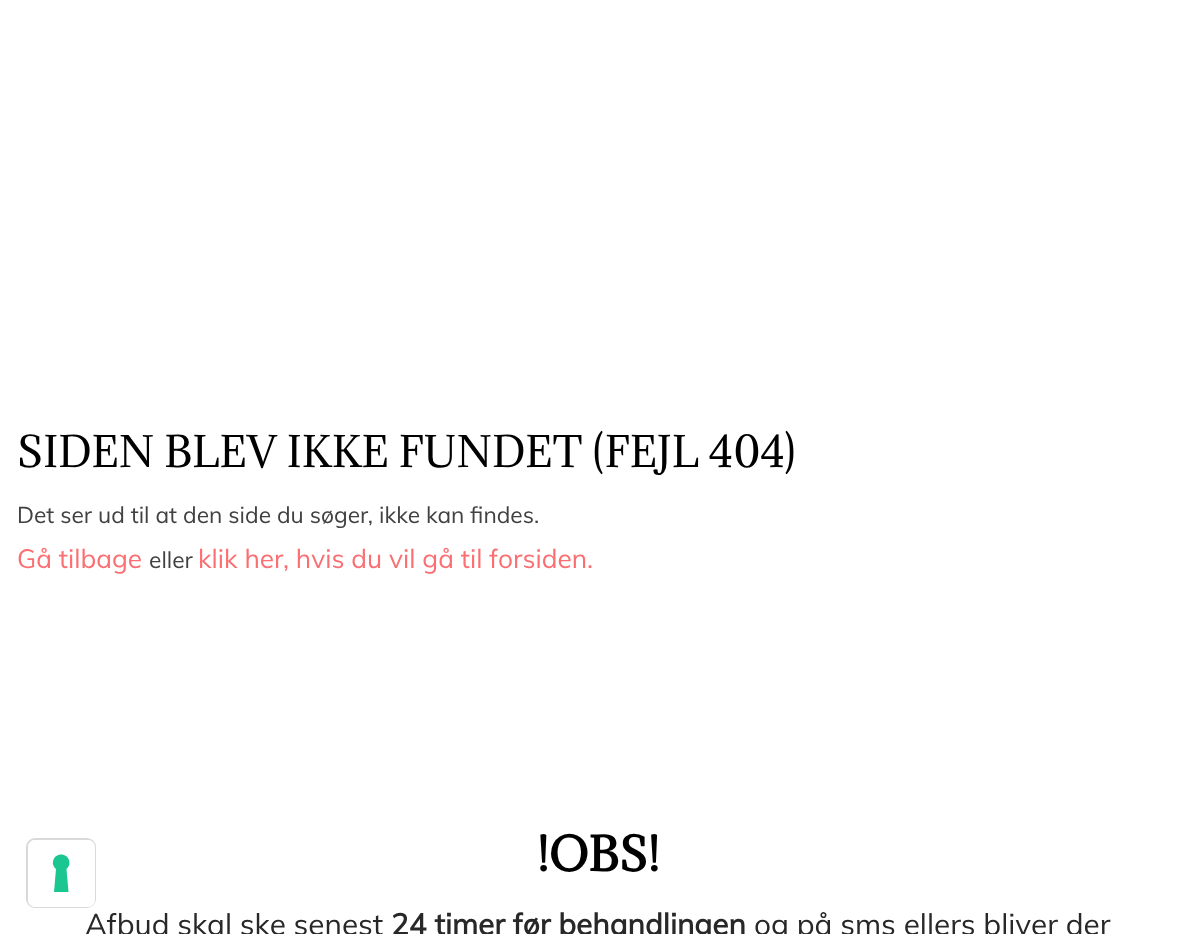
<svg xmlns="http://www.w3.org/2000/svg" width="1194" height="934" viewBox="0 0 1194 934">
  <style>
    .t1 { font: 40.25px Adamina; fill: #000; }
    .t2 { font: 22.75px Muli; fill: #414141; }
    .t3 { font: 26.25px Muli; fill: #fb6e72; }
    .t4 { font: bold 44px Adamina; fill: #000; }
    .t5 { font: 29.75px Muli; fill: #282828; }
    .t6 { font: bold 29.75px Muli; fill: #282828; }
  </style>
  <rect width="100%" height="100%" fill="#fff"/>
  <text x="17" y="467" class="t1">SIDEN BLEV IKKE FUNDET (FEJL 404)</text>
  <text x="17" y="523" class="t2">Det ser ud til at den side du søger, ikke kan findes.</text>
  <text x="17" y="568" class="t3">Gå tilbage</text>
  <text x="149" y="568" class="t2">eller</text>
  <text x="198" y="568" class="t3">klik her, hvis du vil gå til forsiden.</text>
  <text x="537" y="871" class="t4">!OBS!</text>
  <text x="85" y="935" class="t5">Afbud skal ske senest</text>
  <text x="391" y="935" class="t6">24 timer før behandlingen</text>
  <text x="754" y="935" class="t5">og på sms ellers bliver der</text>
  <rect x="27" y="839" width="68" height="68" rx="8" fill="none" stroke="#d9d9d9" stroke-width="2"/>
  <rect x="28" y="840" width="67" height="67" rx="7" fill="#fff"/>
  <path d="M61 854.5C69 854.5 72.5 864 66.5 869L68.5 892H54L56 869C50 864 53.5 854.5 61 854.5Z" fill="#1cc691" fill-rule="evenodd"/>
</svg>
